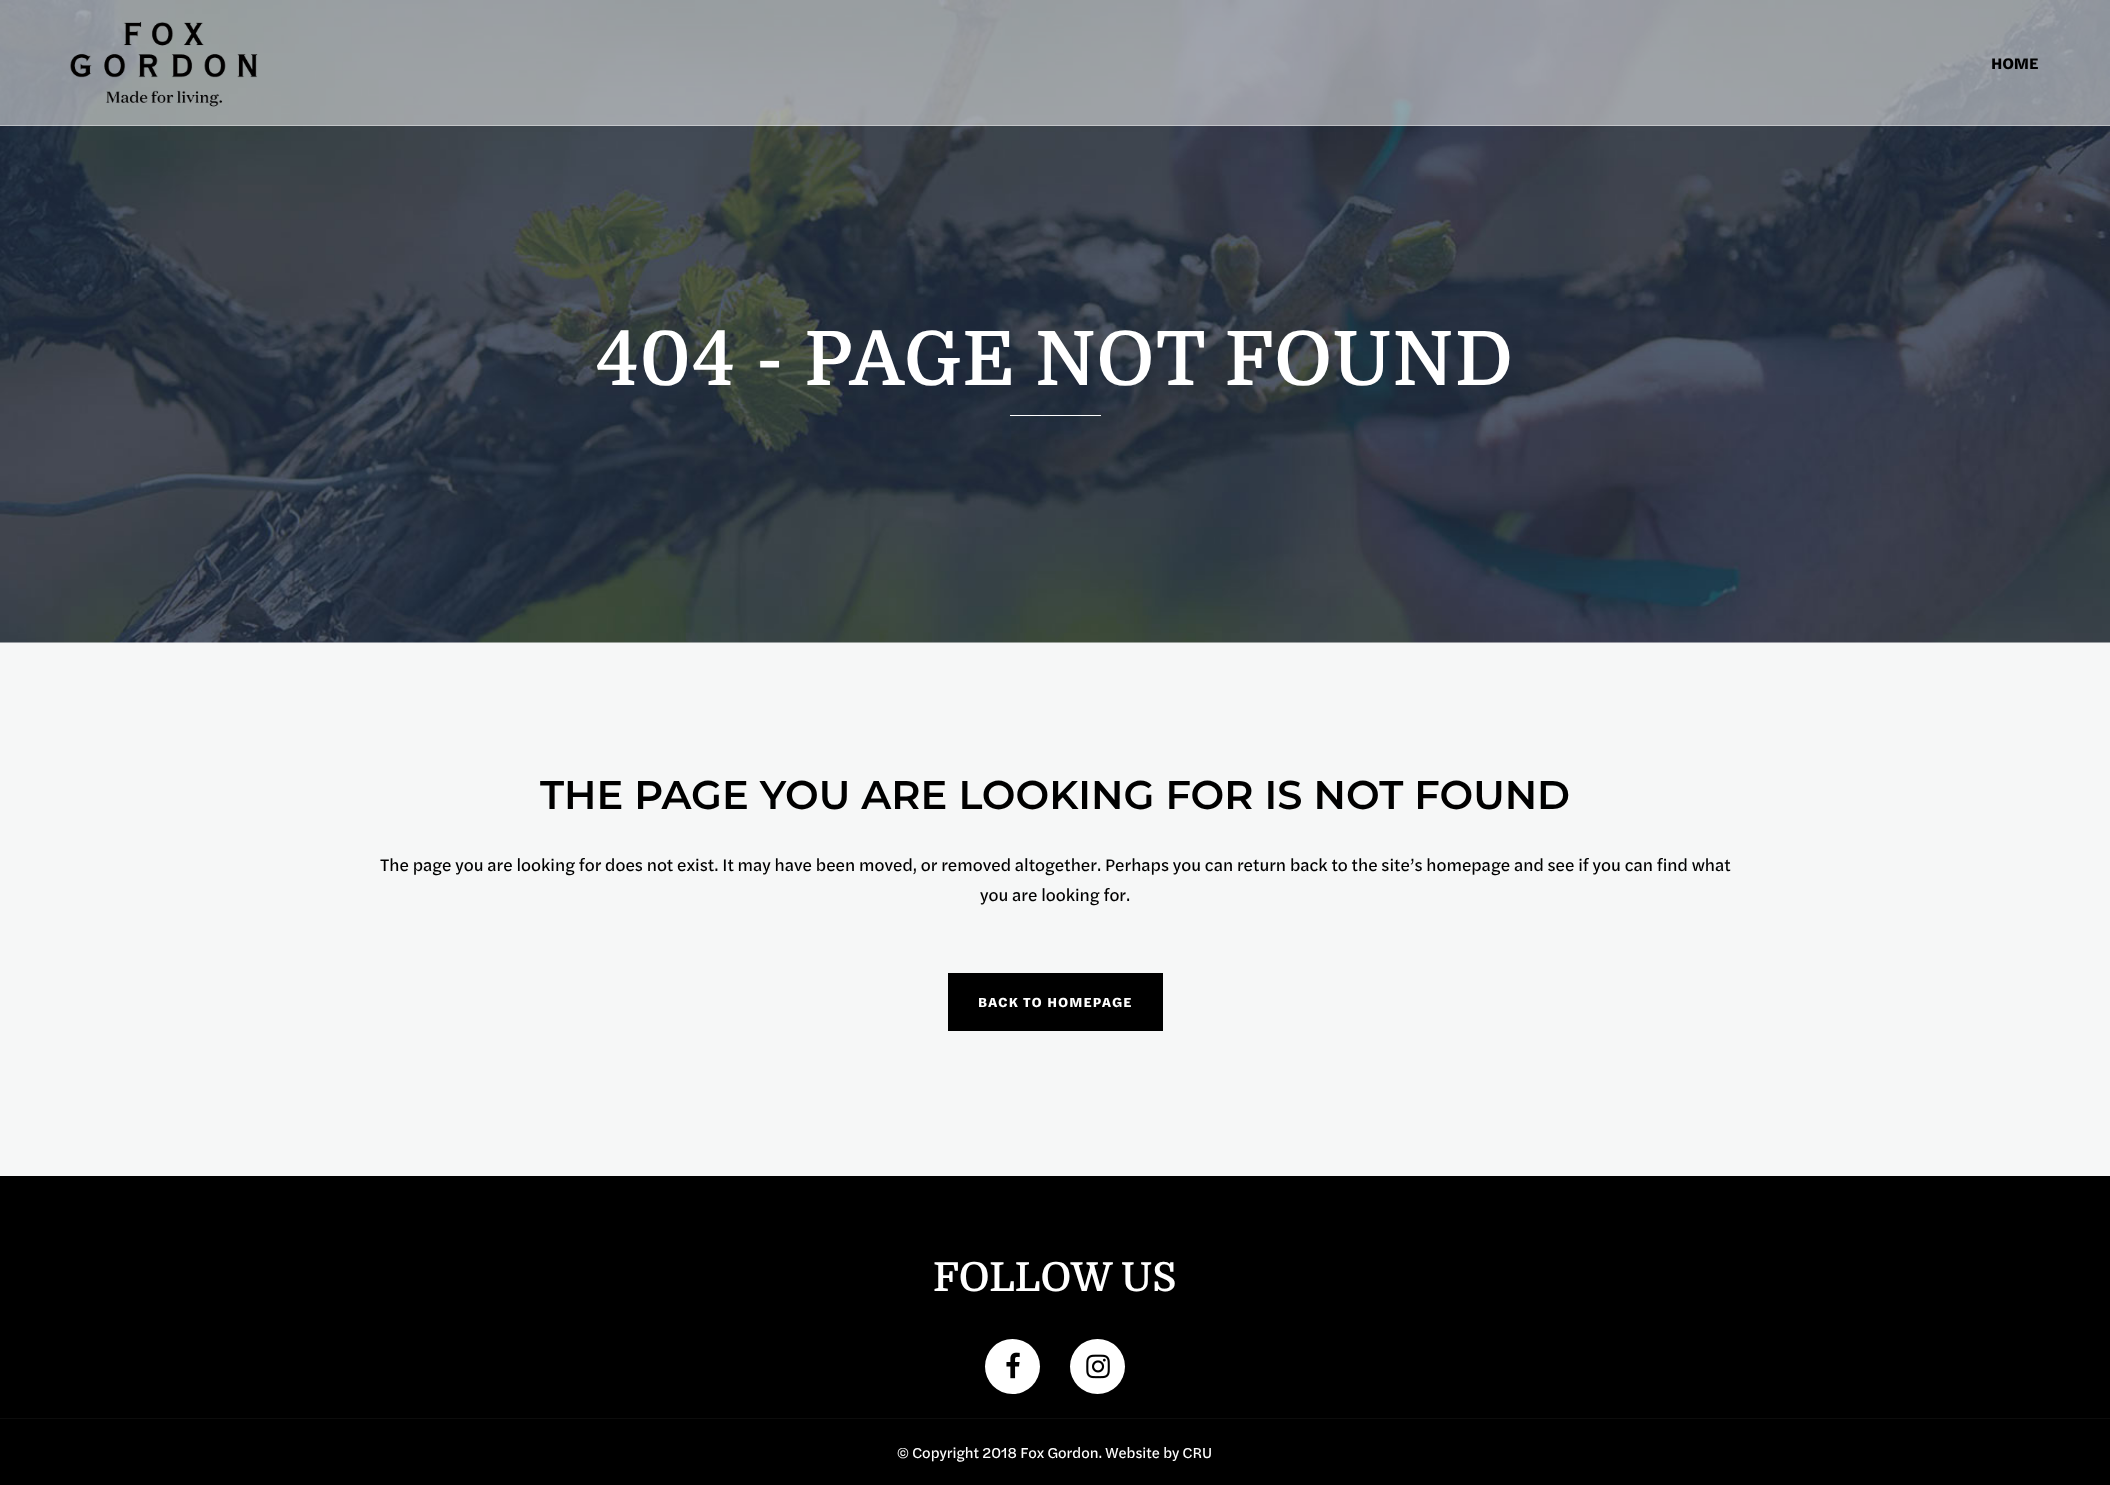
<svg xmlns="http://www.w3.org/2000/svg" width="2110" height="1485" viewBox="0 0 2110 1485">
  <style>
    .t1 { font: bold 16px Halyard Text; fill: #000; }
    .t2 { font: 600 75px Domine; letter-spacing: 1.25px; fill: #fff; }
    .t3 { font: 600 40px Montserrat; fill: #000; }
    .t4 { font: 17.5px Halyard Text; fill: #000; }
    .t5 { font: bold 13.75px Halyard Text; letter-spacing: 1.25px; fill: #fff; }
    .t6 { font: 600 40px Domine; fill: #fff; }
    .t7 { font: 15px Halyard Text; fill: #fff; }
  </style>
  <rect width="100%" height="100%" fill="#f6f7f7"/>
  <image x="0" y="0" width="2110" height="643" href="images/2.png"/>
  <rect x="0" y="0" width="2110" height="126" fill="#ffffff80"/>
  <rect x="0" y="125" width="2110" height="1" fill="#ffffff66"/>
  <image x="70" y="22" width="188" height="85" href="images/1.png"/>
  <text x="1991" y="69" class="t1">HOME</text>
  <text x="596" y="385" class="t2">404 - PAGE NOT FOUND</text>
  <rect x="1010" y="415" width="91" height="1" fill="#fff"/>
  <text x="540" y="809" class="t3">THE PAGE YOU ARE LOOKING FOR IS NOT FOUND</text>
  <text x="380" y="871" class="t4">The page you are looking for does not exist. It may have been moved, or removed altogether. Perhaps you can return back to the site’s homepage and see if you can find what</text>
  <text x="980" y="901" class="t4">you are looking for.</text>
  <rect x="948" y="973" width="215" height="58" fill="#000"/>
  <text x="978" y="1007" class="t5">BACK TO HOMEPAGE</text>
  <rect x="0" y="1176" width="2110" height="242" fill="#000"/>
  <text x="933" y="1291" class="t6">FOLLOW US</text>
  <circle cx="1012.5" cy="1366.5" r="27.5" fill="#fff"/>
  <image x="1006" y="1352" width="14" height="27" href="images/3.png"/>
  <circle cx="1097.5" cy="1366.5" r="27.5" fill="#fff"/>
  <image x="1086" y="1354" width="24" height="25" href="images/4.png"/>
  <rect x="0" y="1419" width="2110" height="66" fill="#000"/>
  <rect x="0" y="1418" width="2110" height="1" fill="#0c0c0c"/>
  <text x="897" y="1458" class="t7">© Copyright 2018 Fox Gordon. Website by CRU</text>
</svg>
